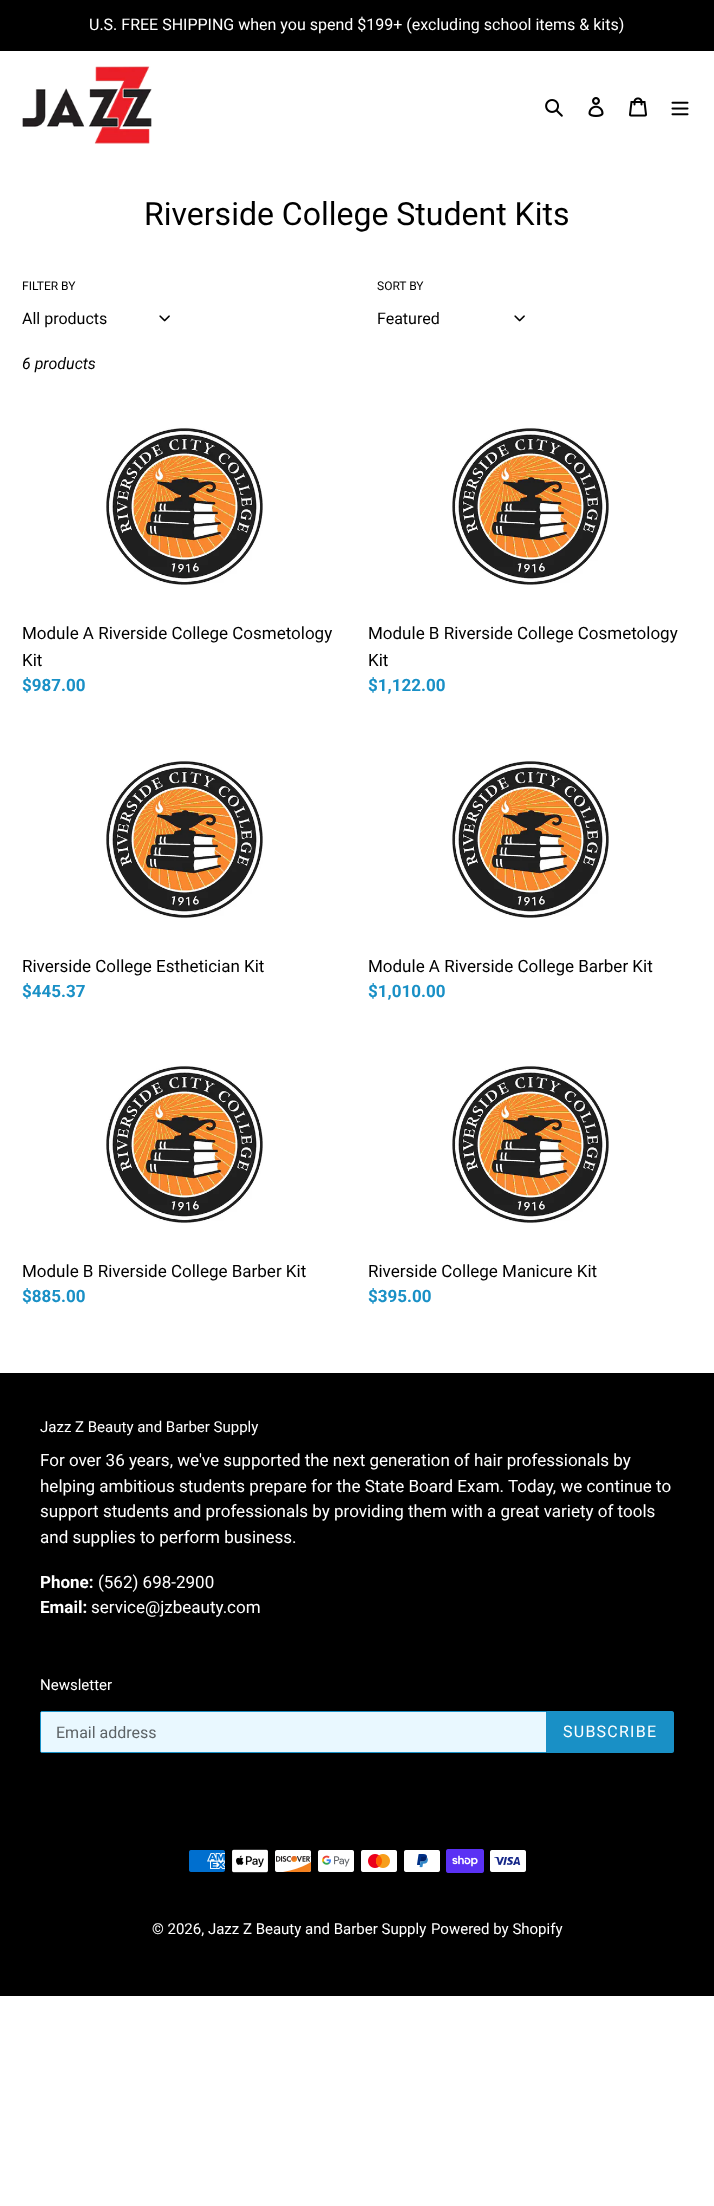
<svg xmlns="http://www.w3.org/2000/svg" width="714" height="2206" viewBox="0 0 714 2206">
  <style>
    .t1 { font: 16px Roboto; fill: #fff; }
    .t2 { font: 32px Roboto; fill: #000; }
    .t3 { font: 12px Roboto; fill: #000; }
    .t4 { font: 16px Roboto; fill: #000; }
    .t5 { font: italic 16px Roboto; fill: #000; }
    .t6 { font: 17px Roboto; fill: #000; }
    .t7 { font: bold 17px Roboto; fill: #1990c6; }
    .t8 { font: 15px Roboto; fill: #fff; }
    .t9 { font: 17px Roboto; fill: #fff; }
    .t10 { font: bold 17px Roboto; fill: #fff; }
    .t11 { font: 16px Roboto; fill: #5d6366; }
    .t12 { font: 16px Roboto; letter-spacing: 1.25px; fill: #fff; }
  </style>
  <rect width="100%" height="100%" fill="#fff"/>
  <rect x="0" y="0" width="714" height="51" fill="#000"/>
  <text x="89" y="30" class="t1">U.S. FREE SHIPPING when you spend $199+ (excluding school items &amp; kits)</text>
  <image x="22" y="66" width="130" height="78" href="images/1.png"/>
  <image x="545" y="99" width="18" height="18" href="images/2.png"/>
  <image x="588" y="97" width="16" height="20" href="images/3.png"/>
  <image x="629" y="97" width="18" height="20" href="images/4.png"/>
  <image x="671" y="101" width="18" height="15" href="images/5.png"/>
  <text x="144" y="225" class="t2">Riverside College Student Kits</text>
  <text x="22" y="290" class="t3">FILTER BY</text>
  <text x="22" y="324" class="t4">All products</text>
  <image x="159" y="315" width="11" height="7" href="images/6.png"/>
  <text x="377" y="290" class="t3">SORT BY</text>
  <text x="377" y="324" class="t4">Featured</text>
  <image x="514" y="315" width="11" height="7" href="images/6.png"/>
  <text x="22" y="369" class="t5">6 products</text>
  <image x="106" y="427" width="157" height="158" href="images/7.png"/>
  <text x="22" y="639" class="t6">Module A Riverside College Cosmetology</text>
  <text x="22" y="666" class="t6">Kit</text>
  <text x="22" y="691" class="t7">$987.00</text>
  <image x="452" y="427" width="157" height="158" href="images/8.png"/>
  <text x="368" y="639" class="t6">Module B Riverside College Cosmetology</text>
  <text x="368" y="666" class="t6">Kit</text>
  <text x="368" y="691" class="t7">$1,122.00</text>
  <image x="106" y="760" width="157" height="158" href="images/9.png"/>
  <text x="22" y="972" class="t6">Riverside College Esthetician Kit</text>
  <text x="22" y="997" class="t7">$445.37</text>
  <image x="452" y="760" width="157" height="158" href="images/10.png"/>
  <text x="368" y="972" class="t6">Module A Riverside College Barber Kit</text>
  <text x="368" y="997" class="t7">$1,010.00</text>
  <image x="106" y="1065" width="157" height="158" href="images/11.png"/>
  <text x="22" y="1277" class="t6">Module B Riverside College Barber Kit</text>
  <text x="22" y="1302" class="t7">$885.00</text>
  <image x="452" y="1065" width="157" height="158" href="images/12.png"/>
  <text x="368" y="1277" class="t6">Riverside College Manicure Kit</text>
  <text x="368" y="1302" class="t7">$395.00</text>
  <rect x="0" y="1373" width="714" height="623" fill="#000"/>
  <text x="40" y="1432" class="t8">Jazz Z Beauty and Barber Supply</text>
  <text x="40" y="1466" class="t9">For over 36 years, we've supported the next generation of hair professionals by</text>
  <text x="40" y="1492" class="t9">helping ambitious students prepare for the State Board Exam. Today, we continue to</text>
  <text x="40" y="1517" class="t9">support students and professionals by providing them with a great variety of tools</text>
  <text x="40" y="1543" class="t9">and supplies to perform business.</text>
  <text x="40" y="1588" class="t10">Phone:</text>
  <text x="98" y="1588" class="t9">(562) 698-2900</text>
  <text x="40" y="1613" class="t10">Email:</text>
  <text x="91" y="1613" class="t9">service@jzbeauty.com</text>
  <text x="40" y="1690" class="t8">Newsletter</text>
  <path d="M42 1711.5H546.5V1752.5H42C41 1752.5 40.5 1752 40.5 1751V1713C40.5 1712 41 1711.5 42 1711.5Z" fill="#e9f8ff" stroke="#1990c6"/>
  <text x="56" y="1738" class="t11">Email address</text>
  <path d="M547 1711H672C673 1711 674 1712 674 1713V1751C674 1752 673 1753 672 1753H547Z" fill="#1990c6"/>
  <text x="563" y="1737" class="t12">SUBSCRIBE</text>
  <image x="189" y="1850" width="36" height="22" href="images/13.png"/>
  <image x="232" y="1849" width="36" height="24" href="images/14.png"/>
  <image x="275" y="1850" width="37" height="22" href="images/15.png"/>
  <image x="318" y="1850" width="36" height="22" href="images/16.png"/>
  <image x="361" y="1850" width="36" height="22" href="images/17.png"/>
  <image x="404" y="1850" width="36" height="22" href="images/18.png"/>
  <image x="446" y="1849" width="38" height="24" href="images/19.png"/>
  <image x="490" y="1850" width="36" height="22" href="images/20.png"/>
  <text x="152" y="1934" class="t8">© 2026, Jazz Z Beauty and Barber Supply</text>
  <text x="431" y="1934" class="t8">Powered by Shopify</text>
</svg>
